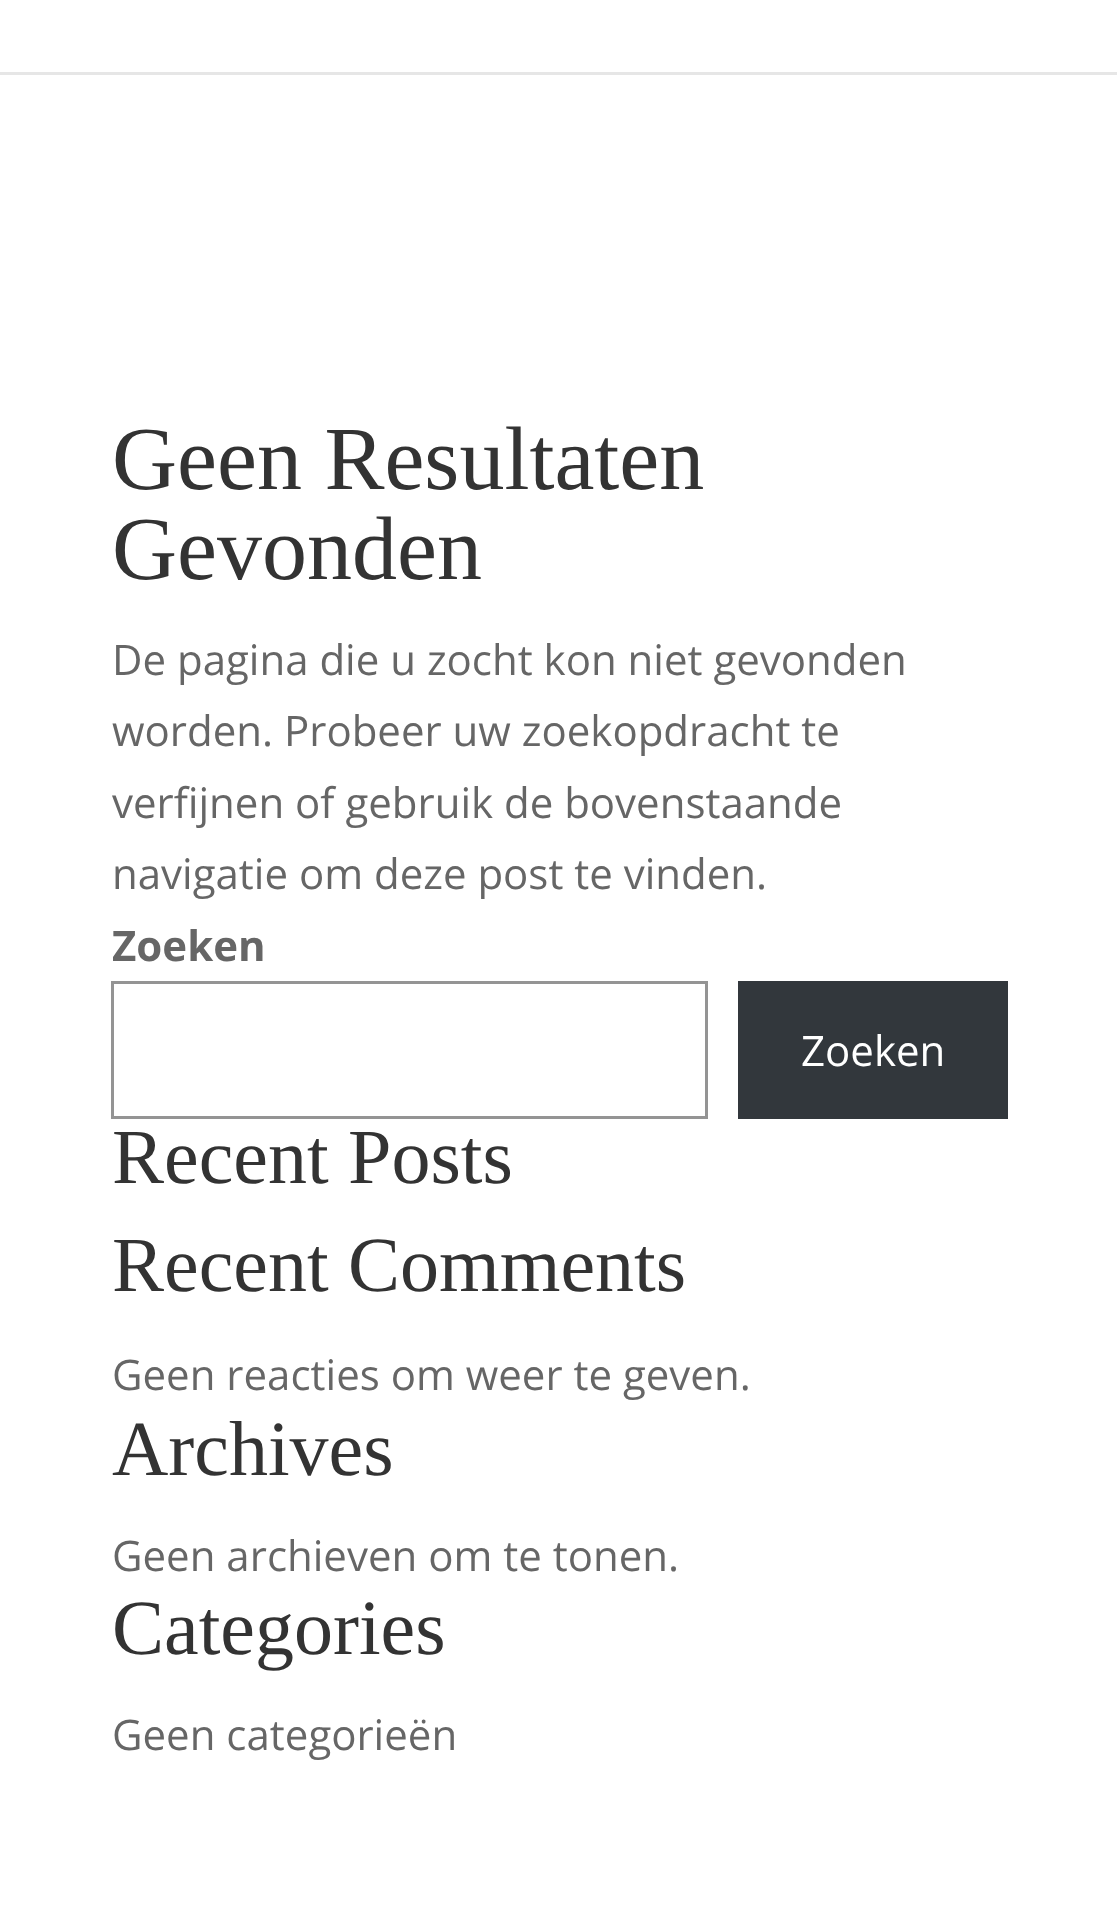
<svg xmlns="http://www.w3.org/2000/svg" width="1117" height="1911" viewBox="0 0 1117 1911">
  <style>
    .t1 { font: 90px Liberation Serif; fill: #333; }
    .t2 { font: 42px Open Sans; fill: #666; }
    .t3 { font: bold 42px Open Sans; fill: #666; }
    .t4 { font: 42px Open Sans; fill: #fff; }
    .t5 { font: 78px Liberation Serif; fill: #333; }
  </style>
  <rect width="100%" height="100%" fill="#fff"/>
  <rect x="0" y="72" width="1117" height="3" fill="#e6e6e6"/>
  <text x="112" y="489" class="t1">Geen Resultaten</text>
  <text x="112" y="579" class="t1">Gevonden</text>
  <text x="112" y="675" class="t2">De pagina die u zocht kon niet gevonden</text>
  <text x="112" y="746" class="t2">worden. Probeer uw zoekopdracht te</text>
  <text x="112" y="818" class="t2">verfijnen of gebruik de bovenstaande</text>
  <text x="112" y="889" class="t2">navigatie om deze post te vinden.</text>
  <text x="112" y="961" class="t3">Zoeken</text>
  <rect x="112.5" y="982.5" width="594" height="135" fill="none" stroke="#949494" stroke-width="3"/>
  <rect x="738" y="981" width="270" height="138" fill="#32373c"/>
  <text x="801" y="1066" class="t4">Zoeken</text>
  <text x="112" y="1183" class="t5">Recent Posts</text>
  <text x="112" y="1291" class="t5">Recent Comments</text>
  <text x="112" y="1390" class="t2">Geen reacties om weer te geven.</text>
  <text x="112" y="1475" class="t5">Archives</text>
  <text x="112" y="1571" class="t2">Geen archieven om te tonen.</text>
  <text x="112" y="1654" class="t5">Categories</text>
  <text x="112" y="1750" class="t2">Geen categorieën</text>
</svg>
